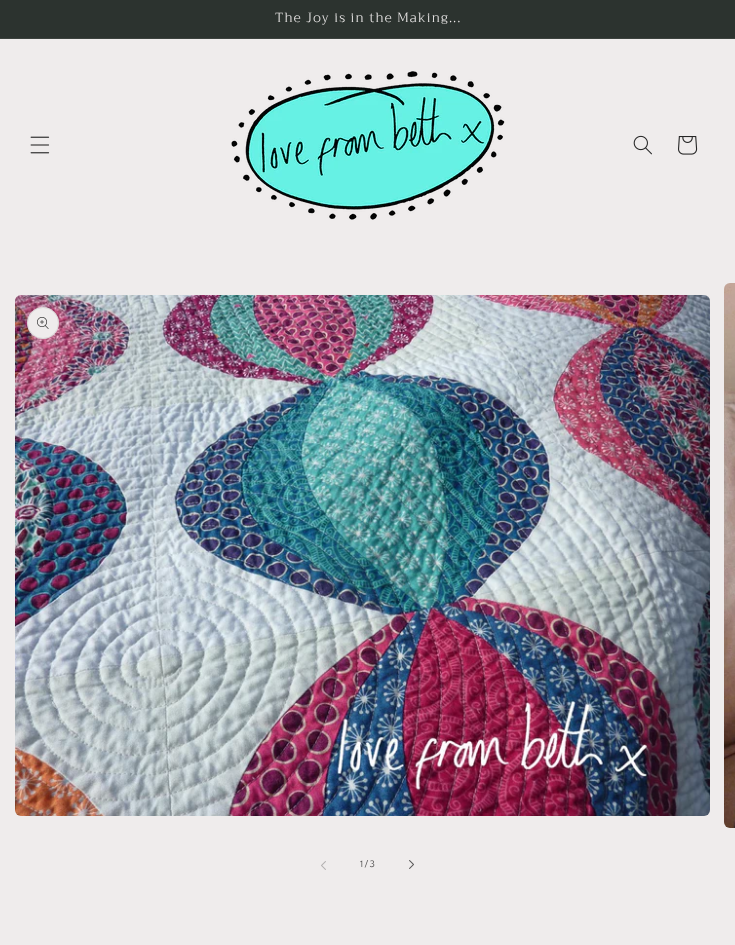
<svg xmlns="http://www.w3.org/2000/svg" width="735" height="945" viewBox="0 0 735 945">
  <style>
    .t1 { font: 300 13.25px Trirong; letter-spacing: 1px; fill: #efecec; }
    .t2 { font: 10px Quattrocento Sans; letter-spacing: 1px; fill: #585757; }
  </style>
  <rect width="100%" height="100%" fill="#efecec"/>
  <rect x="0" y="0" width="735" height="38" fill="#2c332f"/>
  <rect x="0" y="38" width="735" height="1" fill="#3c423e"/>
  <text x="275" y="22" class="t1">The Joy is in the Making...</text>
  <image x="30" y="136" width="20" height="18" href="images/1.png"/>
  <image x="231" y="71" width="274" height="149" href="images/2.png"/>
  <image x="633" y="135" width="19" height="20" href="images/3.png"/>
  <image x="678" y="136" width="20" height="19" href="images/4.png"/>
  <image x="15" y="295" width="695" height="521" href="images/5.png"/>
  <circle cx="43" cy="323" r="16" fill="#efecec"/>
  <circle cx="43" cy="323" r="15.5" fill="none" stroke="#2525251a"/>
  <image x="37" y="317" width="12" height="12" href="images/6.png"/>
  <image x="724" y="283" width="11" height="545" href="images/7.png"/>
  <image x="321" y="861" width="5" height="9" href="images/8.png"/>
  <text x="360" y="867" class="t2">1/3</text>
  <image x="409" y="860" width="5" height="9" href="images/9.png"/>
</svg>
